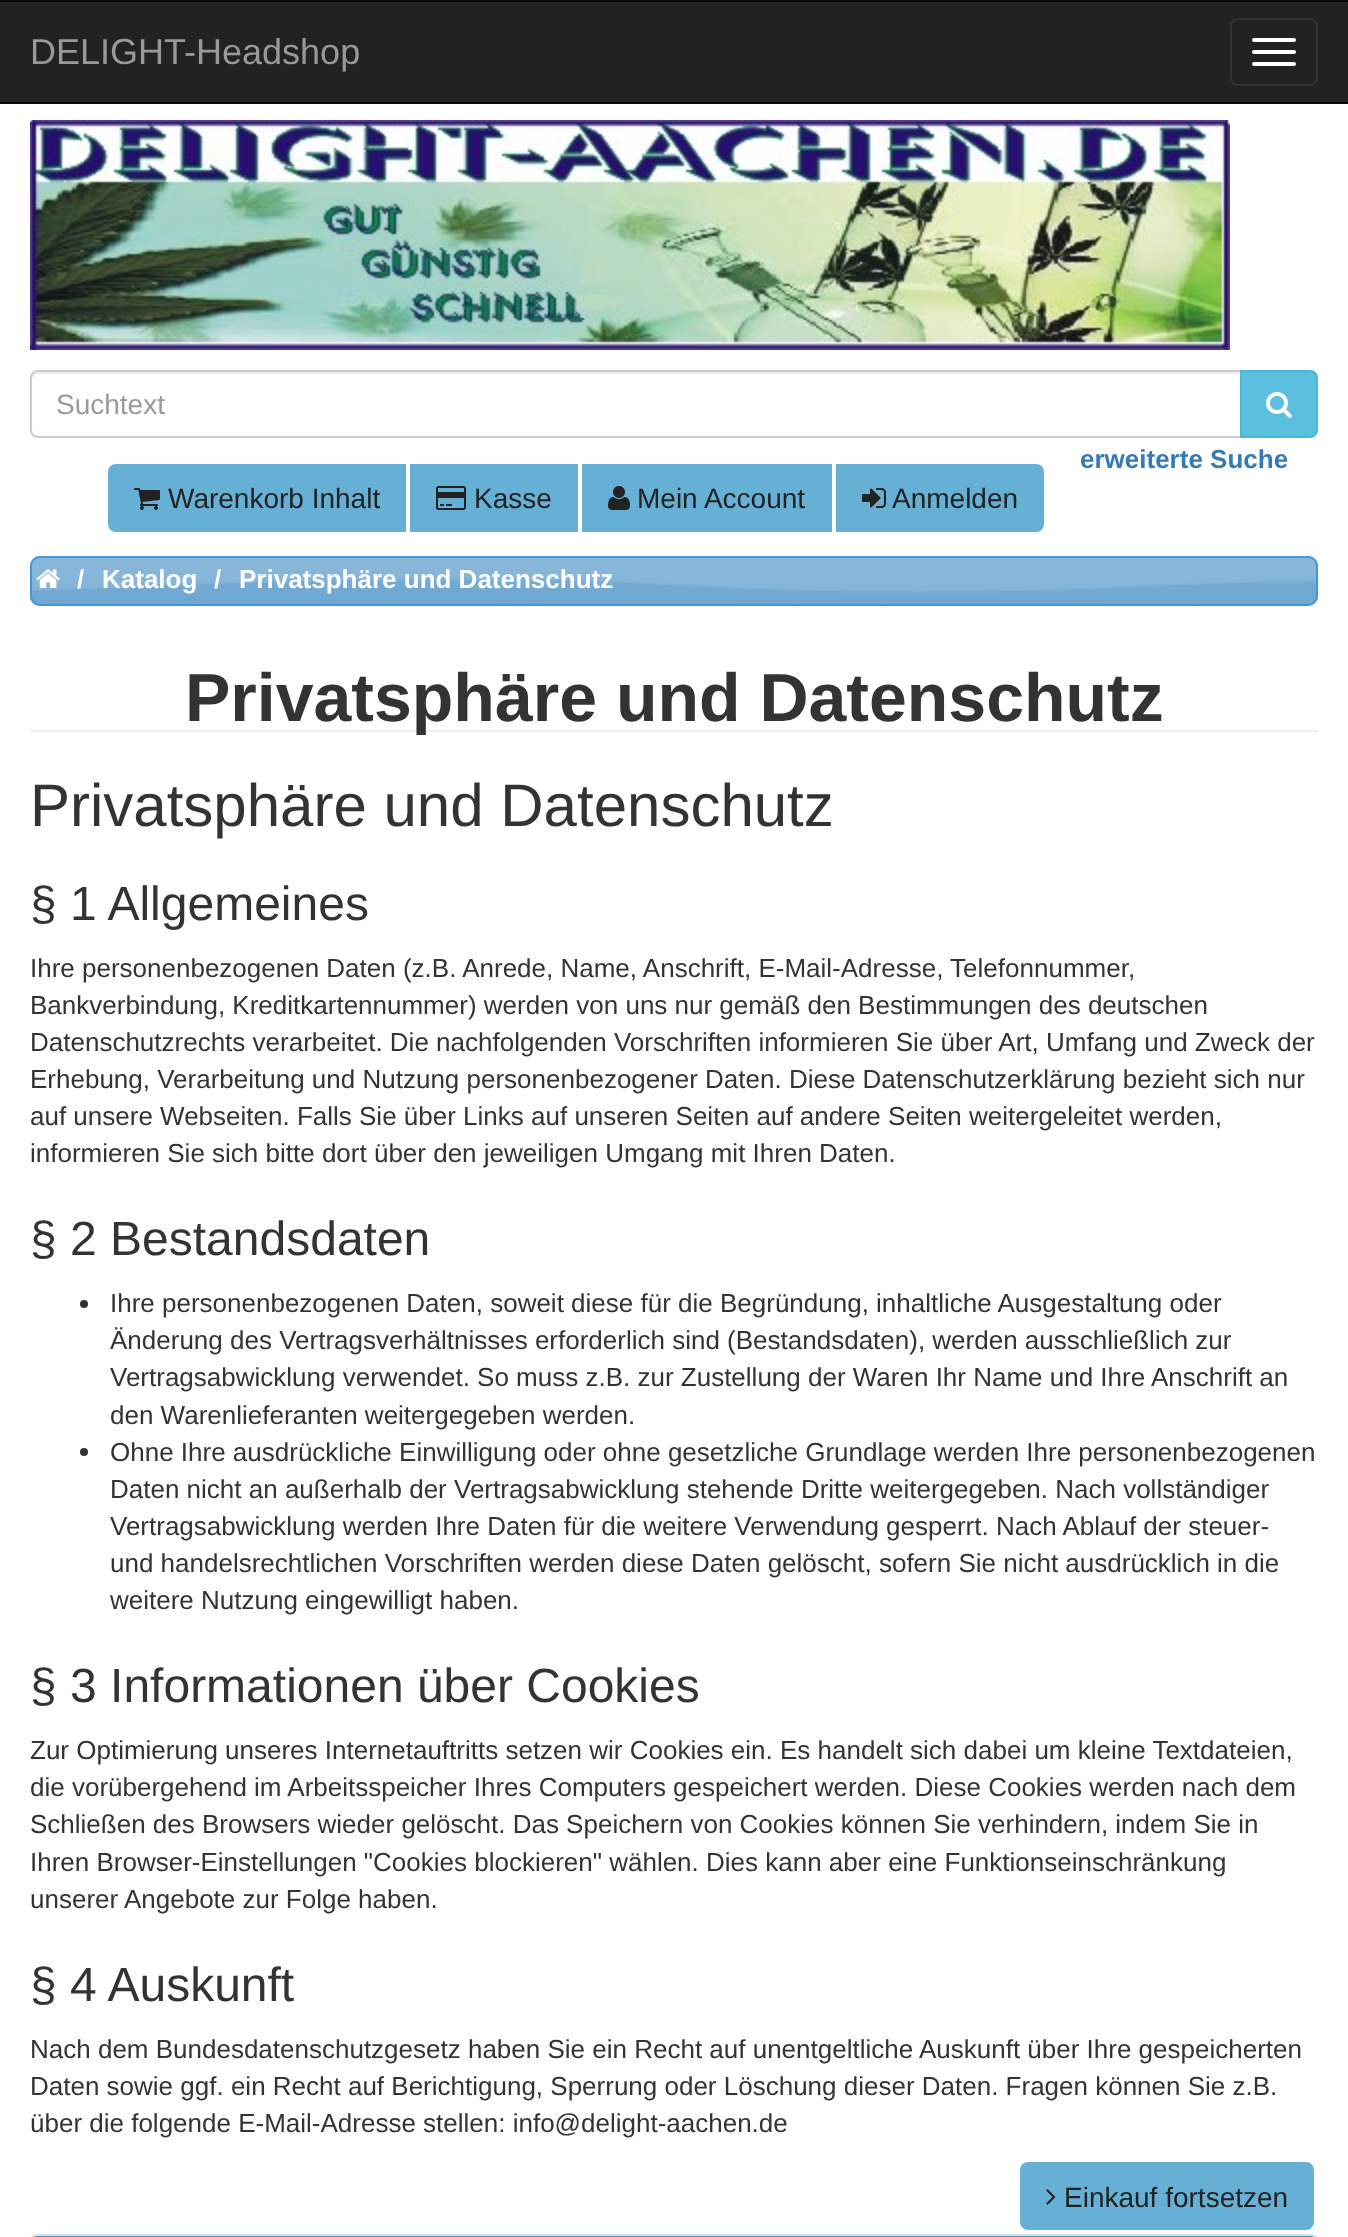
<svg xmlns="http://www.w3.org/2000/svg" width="1348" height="2237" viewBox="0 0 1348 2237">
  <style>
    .t1 { font: 36px Liberation Sans; fill: #999; }
    .t2 { font: 28px Liberation Sans; fill: #999; }
    .t3 { font: bold 26px Liberation Sans; fill: #337ab7; }
    .t4 { font: 28px Liberation Sans; fill: #222; }
    .t5 { font: bold 26px Liberation Sans; fill: #fff; }
    .t6 { font: bold 68px Liberation Sans; fill: #333; }
    .t7 { font: 60px Liberation Sans; fill: #333; }
    .t8 { font: 48px Liberation Sans; fill: #333; }
    .t9 { font: 26px Liberation Sans; fill: #333; }
  </style>
  <rect width="100%" height="100%" fill="#fff"/>
  <rect x="0" y="2" width="1348" height="100" fill="#222"/>
  <rect x="0" y="0" width="1348" height="2" fill="#080808"/>
  <rect x="0" y="102" width="1348" height="2" fill="#080808"/>
  <text x="30" y="64" class="t1">DELIGHT-Headshop</text>
  <rect x="1231" y="19" width="86" height="66" rx="7" fill="none" stroke="#333" stroke-width="2"/>
  <rect x="1252" y="38" width="44" height="4" rx="2" fill="#fff"/>
  <rect x="1252" y="50" width="44" height="4" rx="2" fill="#fff"/>
  <rect x="1252" y="62" width="44" height="4" rx="2" fill="#fff"/>
  <image x="30" y="120" width="1200" height="230" href="images/1.png"/>
  <path d="M38 374H1240V372H38C35 372 32 375 32 378V380C32 377 35 374 38 374Z" fill="#ececec"/>
  <path d="M38 371H1241V437H38C34 437 31 434 31 430V378C31 374 34 371 38 371Z" fill="none" stroke="#ccc" stroke-width="2"/>
  <text x="56" y="414" class="t2">Suchtext</text>
  <path d="M1241 371H1310C1314 371 1317 374 1317 378V430C1317 434 1314 437 1310 437H1241Z" fill="#5bc0de" stroke="#46b8da" stroke-width="2"/>
  <image x="1266" y="392" width="26" height="26" href="images/2.png"/>
  <text x="1080" y="468" class="t3">erweiterte Suche</text>
  <path d="M116 464H406V532H116C111.5 532 108 528.5 108 524V472C108 467.5 111.5 464 116 464Z" fill="#66b0d6"/>
  <image x="134" y="488" width="26" height="22" href="images/3.png"/>
  <text x="168" y="508" class="t4">Warenkorb Inhalt</text>
  <rect x="410" y="464" width="168" height="68" fill="#66b0d6"/>
  <image x="436" y="486" width="30" height="24" href="images/4.png"/>
  <text x="474" y="508" class="t4">Kasse</text>
  <rect x="582" y="464" width="250" height="68" fill="#66b0d6"/>
  <image x="608" y="486" width="22" height="24" href="images/5.png"/>
  <text x="637" y="508" class="t4">Mein Account</text>
  <path d="M836 464H1036C1040.5 464 1044 467.5 1044 472V524C1044 528.5 1040.5 532 1036 532H836Z" fill="#66b0d6"/>
  <image x="862" y="488" width="24" height="20" href="images/6.png"/>
  <text x="892" y="508" class="t4">Anmelden</text>
  <image x="30" y="556" width="1288" height="50" href="images/7.png"/>
  <rect x="31" y="557" width="1286" height="48" rx="9" fill="none" stroke="#4297d7" stroke-width="2"/>
  <image x="36" y="569" width="24" height="19" href="images/8.png"/>
  <text x="77" y="588" class="t5">/</text>
  <text x="102" y="588" class="t5">Katalog</text>
  <text x="214" y="588" class="t5">/</text>
  <text x="239" y="588" class="t5">Privatsphäre und Datenschutz</text>
  <rect x="30" y="730" width="1288" height="2" fill="#eee"/>
  <text x="185" y="721" class="t6">Privatsphäre und Datenschutz</text>
  <text x="30" y="826" class="t7">Privatsphäre und Datenschutz</text>
  <text x="30" y="920" class="t8">§ 1 Allgemeines</text>
  <text x="30" y="977" class="t9">Ihre personenbezogenen Daten (z.B. Anrede, Name, Anschrift, E-Mail-Adresse, Telefonnummer,</text>
  <text x="30" y="1014" class="t9">Bankverbindung, Kreditkartennummer) werden von uns nur gemäß den Bestimmungen des deutschen</text>
  <text x="30" y="1051" class="t9">Datenschutzrechts verarbeitet. Die nachfolgenden Vorschriften informieren Sie über Art, Umfang und Zweck der</text>
  <text x="30" y="1088" class="t9">Erhebung, Verarbeitung und Nutzung personenbezogener Daten. Diese Datenschutzerklärung bezieht sich nur</text>
  <text x="30" y="1125" class="t9">auf unsere Webseiten. Falls Sie über Links auf unseren Seiten auf andere Seiten weitergeleitet werden,</text>
  <text x="30" y="1162" class="t9">informieren Sie sich bitte dort über den jeweiligen Umgang mit Ihren Daten.</text>
  <text x="30" y="1255" class="t8">§ 2 Bestandsdaten</text>
  <circle cx="84" cy="1304" r="4" fill="#333"/>
  <text x="110" y="1312" class="t9">Ihre personenbezogenen Daten, soweit diese für die Begründung, inhaltliche Ausgestaltung oder</text>
  <text x="110" y="1349" class="t9">Änderung des Vertragsverhältnisses erforderlich sind (Bestandsdaten), werden ausschließlich zur</text>
  <text x="110" y="1386" class="t9">Vertragsabwicklung verwendet. So muss z.B. zur Zustellung der Waren Ihr Name und Ihre Anschrift an</text>
  <text x="110" y="1424" class="t9">den Warenlieferanten weitergegeben werden.</text>
  <circle cx="84" cy="1452" r="4" fill="#333"/>
  <text x="110" y="1461" class="t9">Ohne Ihre ausdrückliche Einwilligung oder ohne gesetzliche Grundlage werden Ihre personenbezogenen</text>
  <text x="110" y="1498" class="t9">Daten nicht an außerhalb der Vertragsabwicklung stehende Dritte weitergegeben. Nach vollständiger</text>
  <text x="110" y="1535" class="t9">Vertragsabwicklung werden Ihre Daten für die weitere Verwendung gesperrt. Nach Ablauf der steuer-</text>
  <text x="110" y="1572" class="t9">und handelsrechtlichen Vorschriften werden diese Daten gelöscht, sofern Sie nicht ausdrücklich in die</text>
  <text x="110" y="1609" class="t9">weitere Nutzung eingewilligt haben.</text>
  <text x="30" y="1702" class="t8">§ 3 Informationen über Cookies</text>
  <text x="30" y="1759" class="t9">Zur Optimierung unseres Internetauftritts setzen wir Cookies ein. Es handelt sich dabei um kleine Textdateien,</text>
  <text x="30" y="1796" class="t9">die vorübergehend im Arbeitsspeicher Ihres Computers gespeichert werden. Diese Cookies werden nach dem</text>
  <text x="30" y="1833" class="t9">Schließen des Browsers wieder gelöscht. Das Speichern von Cookies können Sie verhindern, indem Sie in</text>
  <text x="30" y="1871" class="t9">Ihren Browser-Einstellungen "Cookies blockieren" wählen. Dies kann aber eine Funktionseinschränkung</text>
  <text x="30" y="1908" class="t9">unserer Angebote zur Folge haben.</text>
  <text x="30" y="2001" class="t8">§ 4 Auskunft</text>
  <text x="30" y="2058" class="t9">Nach dem Bundesdatenschutzgesetz haben Sie ein Recht auf unentgeltliche Auskunft über Ihre gespeicherten</text>
  <text x="30" y="2095" class="t9">Daten sowie ggf. ein Recht auf Berichtigung, Sperrung oder Löschung dieser Daten. Fragen können Sie z.B.</text>
  <text x="30" y="2132" class="t9">über die folgende E-Mail-Adresse stellen: info@delight-aachen.de</text>
  <rect x="1020" y="2162" width="294" height="68" rx="8" fill="#66b0d6"/>
  <image x="1046" y="2189" width="10" height="16" href="images/9.png"/>
  <text x="1064" y="2207" class="t4">Einkauf fortsetzen</text>
  <rect x="31" y="2235" width="1286" height="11" rx="7" fill="none" stroke="#ddd" stroke-width="2"/>
  <image x="35" y="2236" width="1278" height="1" href="images/10.png"/>
  <path d="M38 2237H1310C1313 2237 1315 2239 1315 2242V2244H33V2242C33 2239 35 2237 38 2237Z" fill="none" stroke="#4297d7" stroke-width="2"/>
</svg>
